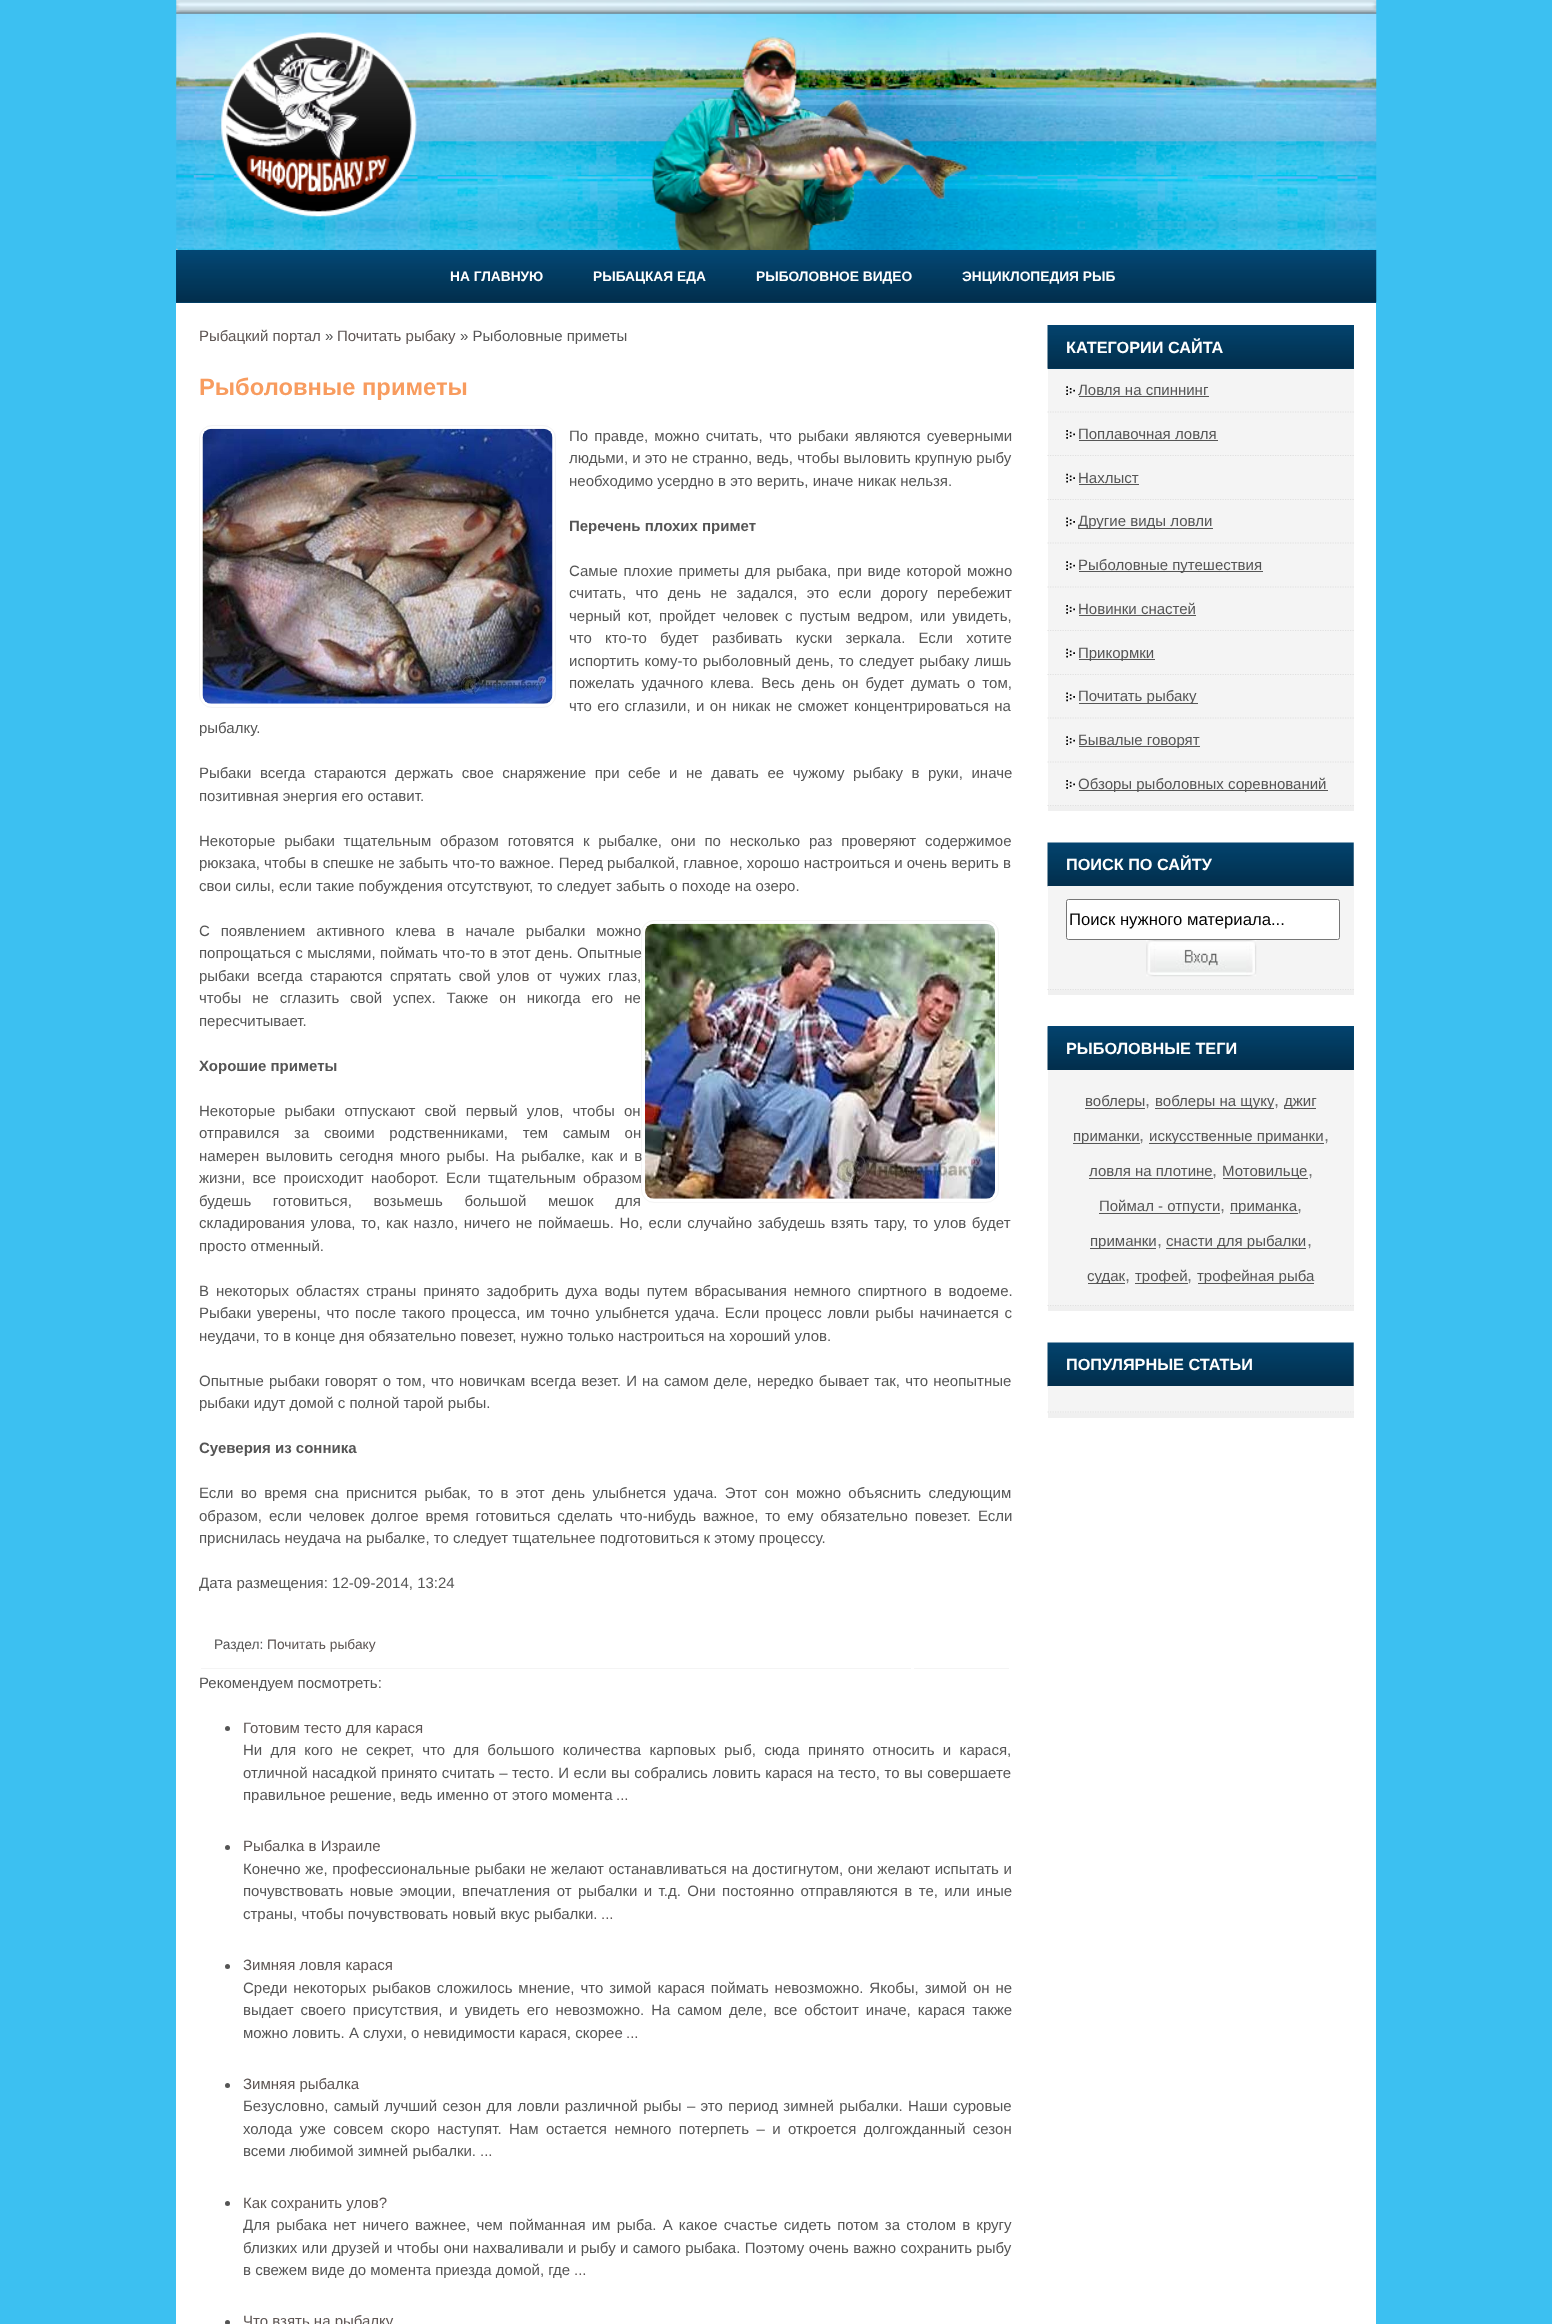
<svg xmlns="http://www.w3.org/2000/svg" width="1552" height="2324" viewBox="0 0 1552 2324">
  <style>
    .t1 { font: bold 13.75px Liberation Sans; fill: #fff; }
    .t2 { font: 15px Liberation Sans; fill: #5d5553; }
    .t3 { font: 15px Liberation Sans; fill: #555; }
    .t4 { font: bold 23.75px Liberation Sans; fill: #f89c5f; }
    .t5 { font: bold 15px Liberation Sans; fill: #555; }
    .t6 { font: 13.75px Liberation Sans; fill: #555; }
    .t7 { font: 13.75px Liberation Sans; fill: #5d5553; }
    .t8 { font: bold 16.25px Liberation Sans; fill: #fff; }
    .t9 { font: 16.7px Liberation Sans; fill: #000; }
    .t10 { font: 18px Liberation Sans; fill: #777; }
  </style>
  <rect width="100%" height="100%" fill="#3cc0f1"/>
  <image x="176" y="0" width="1201" height="250" href="images/1.png"/>
  <rect x="176" y="250" width="1200" height="53" fill="#034c7b"/>
  <image x="176" y="250" width="1201" height="53" href="images/2.png"/>
  <text x="450" y="281" class="t1">НА ГЛАВНУЮ</text>
  <text x="593" y="281" class="t1">РЫБАЦКАЯ ЕДА</text>
  <text x="756" y="281" class="t1">РЫБОЛОВНОЕ ВИДЕО</text>
  <text x="962" y="281" class="t1">ЭНЦИКЛОПЕДИЯ РЫБ</text>
  <rect x="176" y="303" width="1200" height="2021" fill="#fff"/>
  <text x="199" y="341" class="t2">Рыбацкий портал</text>
  <text x="325" y="341" class="t3">»</text>
  <text x="337" y="341" class="t2">Почитать рыбаку</text>
  <text x="460" y="341" class="t3">» Рыболовные приметы</text>
  <text x="199" y="395" class="t4">Рыболовные приметы</text>
  <rect x="199.5" y="425.5" width="356" height="282" rx="12.5" fill="none" stroke="#f4f4f4"/>
  <image x="202" y="428" width="351" height="276" href="images/3.png"/>
  <text x="569" y="441" word-spacing="2" class="t3">По правде, можно считать, что рыбаки являются суеверными</text>
  <text x="569" y="463" class="t3">людьми, и это не странно, ведь, чтобы выловить крупную рыбу</text>
  <text x="569" y="486" class="t3">необходимо усердно в это верить, иначе никак нельзя.</text>
  <text x="569" y="531" class="t5">Перечень плохих примет</text>
  <text x="569" y="576" word-spacing="1.5" class="t3">Самые плохие приметы для рыбака, при виде которой можно</text>
  <text x="569" y="598" word-spacing="5.25" class="t3">считать, что день не задался, это если дорогу перебежит</text>
  <text x="569" y="621" word-spacing="2.75" class="t3">черный кот, пройдет человек с пустым ведром, или увидеть,</text>
  <text x="569" y="643" word-spacing="9" class="t3">что кто-то будет разбивать куски зеркала. Если хотите</text>
  <text x="569" y="666" word-spacing="1" class="t3">испортить кому-то рыболовный день, то следует рыбаку лишь</text>
  <text x="569" y="688" word-spacing="2.75" class="t3">пожелать удачного клева. Весь день он будет думать о том,</text>
  <text x="569" y="711" word-spacing="1.25" class="t3">что его сглазили, и он никак не сможет концентрироваться на</text>
  <text x="199" y="733" class="t3">рыбалку.</text>
  <text x="199" y="778" word-spacing="4.4" class="t3">Рыбаки всегда стараются держать свое снаряжение при себе и не давать ее чужому рыбаку в руки, иначе</text>
  <text x="199" y="801" class="t3">позитивная энергия его оставит.</text>
  <text x="199" y="846" word-spacing="4.6" class="t3">Некоторые рыбаки тщательным образом готовятся к рыбалке, они по несколько раз проверяют содержимое</text>
  <text x="199" y="868" class="t3">рюкзака, чтобы в спешке не забыть что-то важное. Перед рыбалкой, главное, хорошо настроиться и очень верить в</text>
  <text x="199" y="891" class="t3">свои силы, если такие побуждения отсутствуют, то следует забыть о походе на озеро.</text>
  <text x="199" y="936" word-spacing="6.75" class="t3">С появлением активного клева в начале рыбалки можно</text>
  <rect x="641.5" y="920.5" width="357" height="282" rx="12.5" fill="none" stroke="#f4f4f4"/>
  <image x="645" y="923" width="350" height="276" href="images/4.png"/>
  <text x="199" y="958" word-spacing="0.25" class="t3">попрощаться с мыслями, поймать что-то в этот день. Опытные</text>
  <text x="199" y="981" word-spacing="3.25" class="t3">рыбаки всегда стараются спрятать свой</text>
  <text x="497" y="981" class="t2">улов</text>
  <text x="537" y="981" word-spacing="3.25" class="t3">от чужих глаз,</text>
  <text x="199" y="1003" word-spacing="6.75" class="t3">чтобы не сглазить свой успех. Также он никогда его не</text>
  <text x="199" y="1026" class="t3">пересчитывает.</text>
  <text x="199" y="1071" class="t5">Хорошие приметы</text>
  <text x="199" y="1116" word-spacing="5" class="t3">Некоторые рыбаки отпускают свой первый улов, чтобы он</text>
  <text x="199" y="1138" word-spacing="10.5" class="t3">отправился за своими родственниками, тем самым он</text>
  <text x="199" y="1161" word-spacing="2.25" class="t3">намерен выловить сегодня много рыбы. На рыбалке, как и в</text>
  <text x="199" y="1183" word-spacing="3.25" class="t3">жизни, все происходит наоборот. Если тщательным образом</text>
  <text x="199" y="1206" word-spacing="17.5" class="t3">будешь готовиться, возьмешь большой мешок для</text>
  <text x="199" y="1228" word-spacing="1.5" class="t3">складирования улова, то, как назло, ничего не поймаешь. Но, если случайно забудешь взять тару, то улов будет</text>
  <text x="199" y="1251" class="t3">просто отменный.</text>
  <text x="199" y="1296" word-spacing="2.75" class="t3">В некоторых областях страны принято задобрить духа воды путем вбрасывания немного спиртного в водоеме.</text>
  <text x="199" y="1318" word-spacing="1.6" class="t3">Рыбаки уверены, что после такого процесса, им точно улыбнется удача. Если процесс ловли рыбы начинается с</text>
  <text x="199" y="1341" class="t3">неудачи, то в конце дня обязательно повезет, нужно только настроиться на хороший улов.</text>
  <text x="199" y="1386" word-spacing="1" class="t3">Опытные рыбаки говорят о том, что новичкам всегда везет. И на самом деле, нередко бывает так, что неопытные</text>
  <text x="199" y="1408" class="t3">рыбаки идут домой с полной тарой рыбы.</text>
  <text x="199" y="1453" class="t5">Суеверия из сонника</text>
  <text x="199" y="1498" word-spacing="3.1" class="t3">Если во время сна приснится рыбак, то в этот день улыбнется удача. Этот сон можно объяснить следующим</text>
  <text x="199" y="1521" word-spacing="2.75" class="t3">образом, если человек долгое время готовиться сделать что-нибудь важное, то ему обязательно повезет. Если</text>
  <text x="199" y="1543" class="t3">приснилась неудача на рыбалке, то следует тщательнее подготовиться к этому процессу.</text>
  <text x="199" y="1588" class="t3">Дата размещения: 12-09-2014, 13:24</text>
  <rect x="201" y="1668" width="710" height="1" fill="#f4f4f4"/>
  <text x="214" y="1649" class="t6">Раздел:</text>
  <text x="267" y="1649" class="t7">Почитать рыбаку</text>
  <rect x="914" y="1668" width="95" height="1" fill="#f4f4f4"/>
  <text x="199" y="1688" class="t3">Рекомендуем посмотреть:</text>
  <circle cx="227.5" cy="1728.5" r="2.5" fill="#555"/>
  <text x="243" y="1733" class="t2">Готовим тесто для карася</text>
  <text x="243" y="1755" word-spacing="4.1" class="t3">Ни для кого не секрет, что для большого количества карповых рыб, сюда принято относить и карася,</text>
  <text x="243" y="1778" word-spacing="0.3" class="t3">отличной насадкой принято считать – тесто. И если вы собрались ловить карася на тесто, то вы совершаете</text>
  <text x="243" y="1800" class="t3">правильное решение, ведь именно от этого момента</text>
  <text x="616" y="1800" class="t2">...</text>
  <circle cx="227.5" cy="1847.5" r="2.5" fill="#555"/>
  <text x="243" y="1851" class="t2">Рыбалка в Израиле</text>
  <text x="243" y="1874" word-spacing="0.4" class="t3">Конечно же, профессиональные рыбаки не желают останавливаться на достигнутом, они желают испытать и</text>
  <text x="243" y="1896" word-spacing="2.25" class="t3">почувствовать новые эмоции, впечатления от рыбалки и т.д. Они постоянно отправляются в те, или иные</text>
  <text x="243" y="1919" class="t3">страны, чтобы почувствовать новый вкус рыбалки.</text>
  <text x="601" y="1919" class="t2">...</text>
  <circle cx="227.5" cy="1966.5" r="2.5" fill="#555"/>
  <text x="243" y="1970" class="t2">Зимняя ловля карася</text>
  <text x="243" y="1993" word-spacing="1.75" class="t3">Среди некоторых рыбаков сложилось мнение, что зимой карася поймать невозможно. Якобы, зимой он не</text>
  <text x="243" y="2015" word-spacing="2.75" class="t3">выдает своего присутствия, и увидеть его невозможно. На самом деле, все обстоит иначе, карася также</text>
  <text x="243" y="2038" class="t3">можно ловить. А слухи, о невидимости карася, скорее</text>
  <text x="626" y="2038" class="t2">...</text>
  <circle cx="227.5" cy="2085.5" r="2.5" fill="#555"/>
  <text x="243" y="2089" class="t2">Зимняя рыбалка</text>
  <text x="243" y="2111" word-spacing="1.1" class="t3">Безусловно, самый лучший сезон для ловли различной рыбы – это период зимней рыбалки. Наши суровые</text>
  <text x="243" y="2134" word-spacing="3.25" class="t3">холода уже совсем скоро наступят. Нам остается немного потерпеть – и откроется долгожданный сезон</text>
  <text x="243" y="2156" class="t3">всеми любимой зимней рыбалки.</text>
  <text x="480" y="2156" class="t2">...</text>
  <circle cx="227.5" cy="2203.5" r="2.5" fill="#555"/>
  <text x="243" y="2208" class="t2">Как сохранить улов?</text>
  <text x="243" y="2230" word-spacing="2" class="t3">Для рыбака нет ничего важнее, чем пойманная им рыба. А какое счастье сидеть потом за столом в кругу</text>
  <text x="243" y="2253" word-spacing="0.25" class="t3">близких или друзей и чтобы они нахваливали и рыбу и самого рыбака. Поэтому очень важно сохранить рыбу</text>
  <text x="243" y="2275" class="t3">в свежем виде до момента приезда домой, где</text>
  <text x="574" y="2275" class="t2">...</text>
  <circle cx="227.5" cy="2322.5" r="2.5" fill="#555"/>
  <text x="243" y="2326" class="t2">Что взять на рыбалку</text>
  <rect x="1048" y="325" width="306" height="44" fill="#034c7b"/>
  <image x="1047" y="325" width="307" height="44" href="images/5.png"/>
  <text x="1066" y="353" class="t8">КАТЕГОРИИ САЙТА</text>
  <rect x="1048" y="369" width="306" height="437" fill="#f4f4f4"/>
  <rect x="1048" y="806" width="306" height="5" fill="#f0f0f0"/>
  <path d="M1047.5 412H1354" fill="none" stroke="#e0e0e0" stroke-width="1.2" stroke-dasharray="1.25 1.25"/>
  <image x="1066" y="386" width="9" height="9" href="images/6.png"/>
  <text x="1078" y="395" class="t3">Ловля на спиннинг</text>
  <rect x="1079" y="396" width="130" height="1" fill="#555"/>
  <path d="M1047.5 455.5H1354" fill="none" stroke="#e0e0e0" stroke-width="1.2" stroke-dasharray="1.25 1.25"/>
  <image x="1066" y="430" width="9" height="9" href="images/7.png"/>
  <text x="1078" y="439" class="t3">Поплавочная ловля</text>
  <rect x="1079" y="440" width="139" height="1" fill="#555"/>
  <path d="M1047.5 499.5H1354" fill="none" stroke="#e0e0e0" stroke-width="1.2" stroke-dasharray="1.25 1.25"/>
  <image x="1066" y="473" width="9" height="10" href="images/8.png"/>
  <text x="1078" y="483" class="t3">Нахлыст</text>
  <rect x="1079" y="484" width="60" height="1" fill="#555"/>
  <path d="M1047.5 543H1354" fill="none" stroke="#e0e0e0" stroke-width="1.2" stroke-dasharray="1.25 1.25"/>
  <image x="1066" y="517" width="9" height="10" href="images/9.png"/>
  <rect x="1079" y="528" width="134" height="1" fill="#555"/>
  <text x="1078" y="526" class="t3">Другие виды ловли</text>
  <path d="M1047.5 587H1354" fill="none" stroke="#e0e0e0" stroke-width="1.2" stroke-dasharray="1.25 1.25"/>
  <image x="1066" y="561" width="9" height="9" href="images/6.png"/>
  <rect x="1079" y="571" width="184" height="1" fill="#555"/>
  <text x="1078" y="570" class="t3">Рыболовные путешествия</text>
  <path d="M1047.5 630.5H1354" fill="none" stroke="#e0e0e0" stroke-width="1.2" stroke-dasharray="1.25 1.25"/>
  <image x="1066" y="605" width="9" height="9" href="images/7.png"/>
  <text x="1078" y="614" class="t3">Новинки снастей</text>
  <rect x="1079" y="615" width="117" height="1" fill="#555"/>
  <path d="M1047.5 674.5H1354" fill="none" stroke="#e0e0e0" stroke-width="1.2" stroke-dasharray="1.25 1.25"/>
  <image x="1066" y="648" width="9" height="10" href="images/8.png"/>
  <rect x="1079" y="659" width="76" height="1" fill="#555"/>
  <text x="1078" y="658" class="t3">Прикормки</text>
  <path d="M1047.5 718H1354" fill="none" stroke="#e0e0e0" stroke-width="1.2" stroke-dasharray="1.25 1.25"/>
  <image x="1066" y="692" width="9" height="10" href="images/9.png"/>
  <rect x="1079" y="703" width="119" height="1" fill="#555"/>
  <text x="1078" y="701" class="t3">Почитать рыбаку</text>
  <path d="M1047.5 762H1354" fill="none" stroke="#e0e0e0" stroke-width="1.2" stroke-dasharray="1.25 1.25"/>
  <image x="1066" y="736" width="9" height="9" href="images/6.png"/>
  <rect x="1079" y="746" width="121" height="1" fill="#555"/>
  <text x="1078" y="745" class="t3">Бывалые говорят</text>
  <path d="M1047.5 805.5H1354" fill="none" stroke="#e0e0e0" stroke-width="1.2" stroke-dasharray="1.25 1.25"/>
  <image x="1066" y="780" width="9" height="9" href="images/7.png"/>
  <rect x="1079" y="790" width="249" height="1" fill="#555"/>
  <text x="1078" y="789" class="t3">Обзоры рыболовных соревнований</text>
  <image x="1047" y="842" width="307" height="45" href="images/10.png"/>
  <text x="1066" y="870" class="t8">ПОИСК ПО САЙТУ</text>
  <rect x="1048" y="886" width="306" height="104" fill="#f4f4f4"/>
  <rect x="1048" y="990" width="306" height="5" fill="#f0f0f0"/>
  <path d="M1047.5 989.5H1354" fill="none" stroke="#e0e0e0" stroke-width="1.2" stroke-dasharray="1.25 1.25"/>
  <rect x="1066.5" y="899.5" width="273" height="40" rx="2" fill="#fff" stroke="#767676"/>
  <text x="1069" y="925" class="t9">Поиск нужного материала...</text>
  <image x="1146" y="940" width="111" height="37" href="images/11.png"/>
  <rect x="1048" y="1026" width="306" height="44" fill="#034c7b"/>
  <image x="1047" y="1026" width="307" height="44" href="images/12.png"/>
  <text x="1066" y="1054" class="t8">РЫБОЛОВНЫЕ ТЕГИ</text>
  <rect x="1048" y="1070" width="306" height="236" fill="#f4f4f4"/>
  <rect x="1048" y="1306" width="306" height="5" fill="#f0f0f0"/>
  <path d="M1047.5 1305.5H1354" fill="none" stroke="#e0e0e0" stroke-width="1.2" stroke-dasharray="1.25 1.25"/>
  <rect x="1085" y="1108" width="60" height="1" fill="#555"/>
  <text x="1085" y="1106" class="t3">воблеры</text>
  <text x="1145" y="1106" class="t10">,</text>
  <rect x="1155" y="1108" width="119" height="1" fill="#555"/>
  <text x="1155" y="1106" class="t3">воблеры на щуку</text>
  <text x="1274" y="1106" class="t10">,</text>
  <rect x="1284" y="1108" width="32" height="1" fill="#555"/>
  <text x="1284" y="1106" class="t3">джиг</text>
  <rect x="1073" y="1143" width="67" height="1" fill="#555"/>
  <text x="1073" y="1141" class="t3">приманки</text>
  <text x="1139" y="1141" class="t10">,</text>
  <rect x="1149" y="1143" width="175" height="1" fill="#555"/>
  <text x="1149" y="1141" class="t3">искусственные приманки</text>
  <text x="1324" y="1141" class="t10">,</text>
  <text x="1089" y="1176" class="t3">ловля на плотине</text>
  <rect x="1089" y="1178" width="124" height="1" fill="#555"/>
  <text x="1212" y="1176" class="t10">,</text>
  <rect x="1223" y="1178" width="85" height="1" fill="#555"/>
  <text x="1222" y="1176" class="t3">Мотовильце</text>
  <text x="1308" y="1176" class="t10">,</text>
  <rect x="1099" y="1213" width="121" height="1" fill="#555"/>
  <text x="1099" y="1211" class="t3">Поймал - отпусти</text>
  <text x="1220" y="1211" class="t10">,</text>
  <rect x="1230" y="1213" width="68" height="1" fill="#555"/>
  <text x="1230" y="1211" class="t3">приманка</text>
  <text x="1297" y="1211" class="t10">,</text>
  <rect x="1090" y="1248" width="66" height="1" fill="#555"/>
  <text x="1090" y="1246" class="t3">приманки</text>
  <text x="1157" y="1246" class="t10">,</text>
  <rect x="1166" y="1248" width="140" height="1" fill="#555"/>
  <text x="1166" y="1246" class="t3">снасти для рыбалки</text>
  <text x="1307" y="1246" class="t10">,</text>
  <rect x="1088" y="1283" width="37" height="1" fill="#555"/>
  <text x="1087" y="1281" class="t3">судак</text>
  <text x="1125" y="1281" class="t10">,</text>
  <rect x="1135" y="1283" width="53" height="1" fill="#555"/>
  <text x="1135" y="1281" class="t3">трофей</text>
  <text x="1187" y="1281" class="t10">,</text>
  <rect x="1198" y="1283" width="116" height="1" fill="#555"/>
  <text x="1197" y="1281" class="t3">трофейная рыба</text>
  <image x="1047" y="1342" width="307" height="45" href="images/13.png"/>
  <text x="1066" y="1370" class="t8">ПОПУЛЯРНЫЕ СТАТЬИ</text>
  <rect x="1048" y="1386" width="306" height="27" fill="#f4f4f4"/>
  <rect x="1048" y="1413" width="306" height="5" fill="#f0f0f0"/>
  <path d="M1047.5 1412H1354" fill="none" stroke="#e0e0e0" stroke-width="1.2" stroke-dasharray="1.25 1.25"/>
</svg>
